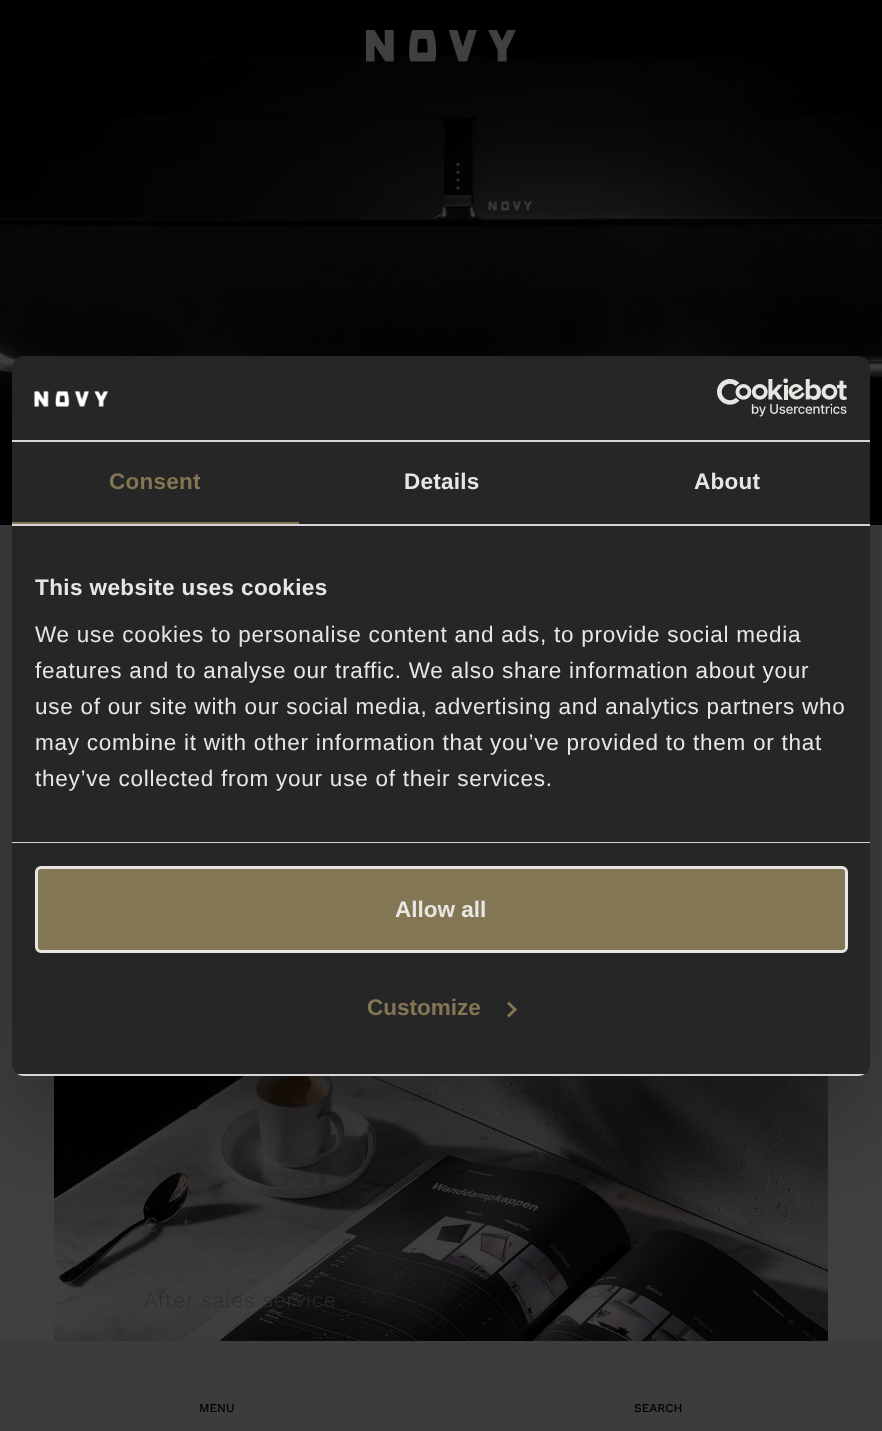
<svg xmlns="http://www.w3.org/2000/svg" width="882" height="1431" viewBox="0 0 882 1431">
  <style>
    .t1 { font: bold 22.5px Liberation Sans; letter-spacing: 0.25px; fill: #837654; }
    .t2 { font: bold 22.5px Liberation Sans; letter-spacing: 0.25px; fill: #e8e6e3; }
    .t3 { font: bold 22.5px Liberation Sans; letter-spacing: 0.4px; fill: #e8e6e3; }
    .t4 { font: 22.5px Liberation Sans; letter-spacing: 0.75px; fill: #e8e6e3; }
    .t5 { font: bold 22.5px Liberation Sans; fill: #e8e6e3; }
    .t6 { font: bold 22.5px Liberation Sans; fill: #837654; }
    .t7 { font: 300 21px Work Sans; letter-spacing: 0.75px; fill: #2e2e2d; }
    .t8 { font: 500 12px Work Sans; fill: #000; }
  </style>
  <defs>
    <clipPath id="clip1"><rect x="12" y="356" width="858" height="720" rx="12"/></clipPath>
  </defs>
  <rect width="100%" height="100%" fill="#404040"/>
  <image x="0" y="0" width="882" height="525" href="images/4.png"/>
  <image x="366" y="30" width="150" height="32" href="images/1.png"/>
  <image x="54" y="1076" width="774" height="265" href="images/5.png"/>
  <rect x="12" y="404" width="858" height="720" rx="12" fill="#0000004d" filter="blur(51px)"/>
  <rect x="12" y="356" width="858" height="720" rx="12" fill="#272627"/>
  <rect x="12" y="440" width="858" height="2" fill="#d6d6d6"/>
  <image x="34" y="391" width="74" height="16" href="images/2.png"/>
  <image x="717" y="378" width="130" height="39" href="images/3.png"/>
  <rect x="12" y="524" width="858" height="2" fill="#d6d6d6"/>
  <rect x="12" y="522" width="287" height="2" fill="#837654"/>
  <text x="109" y="489" class="t1">Consent</text>
  <text x="404" y="489" class="t2">Details</text>
  <text x="694" y="489" class="t2">About</text>
  <rect x="12" y="842" width="858" height="1" fill="#d6d6d6"/>
  <text x="35" y="595" class="t3">This website uses cookies</text>
  <text x="35" y="642" class="t4">We use cookies to personalise content and ads, to provide social media</text>
  <text x="35" y="678" class="t4">features and to analyse our traffic. We also share information about your</text>
  <text x="35" y="714" class="t4">use of our site with our social media, advertising and analytics partners who</text>
  <text x="35" y="750" class="t4">may combine it with other information that you’ve provided to them or that</text>
  <text x="35" y="786" class="t4">they’ve collected from your use of their services.</text>
  <g clip-path="url(#clip1)">
    <rect x="12" y="1074" width="858" height="2" fill="#d6d6d6"/>
  </g>
  <rect x="36.5" y="867.5" width="810" height="84" rx="4.5" fill="#837654" stroke="#e8e6e3" stroke-width="3"/>
  <text x="395" y="917" class="t5">Allow all</text>
  <text x="367" y="1015" class="t6">Customize</text>
  <path d="M509 1001.5L517 1009.5L515 1011.5L507 1003.5Z" fill="#837654"/>
  <path d="M515 1007.5L517 1009.5L509 1017.5L507 1015.5Z" fill="#837654"/>
  <text x="144" y="1232" class="t7">C</text>
  <text x="183" y="1232" class="t7">t</text>
  <text x="144" y="1307" class="t7">After sales service</text>
  <rect x="0" y="1341" width="882" height="90" fill="#3c3c3c"/>
  <text x="199" y="1412" class="t8">MENU</text>
  <text x="634" y="1412" class="t8">SEARCH</text>
</svg>
